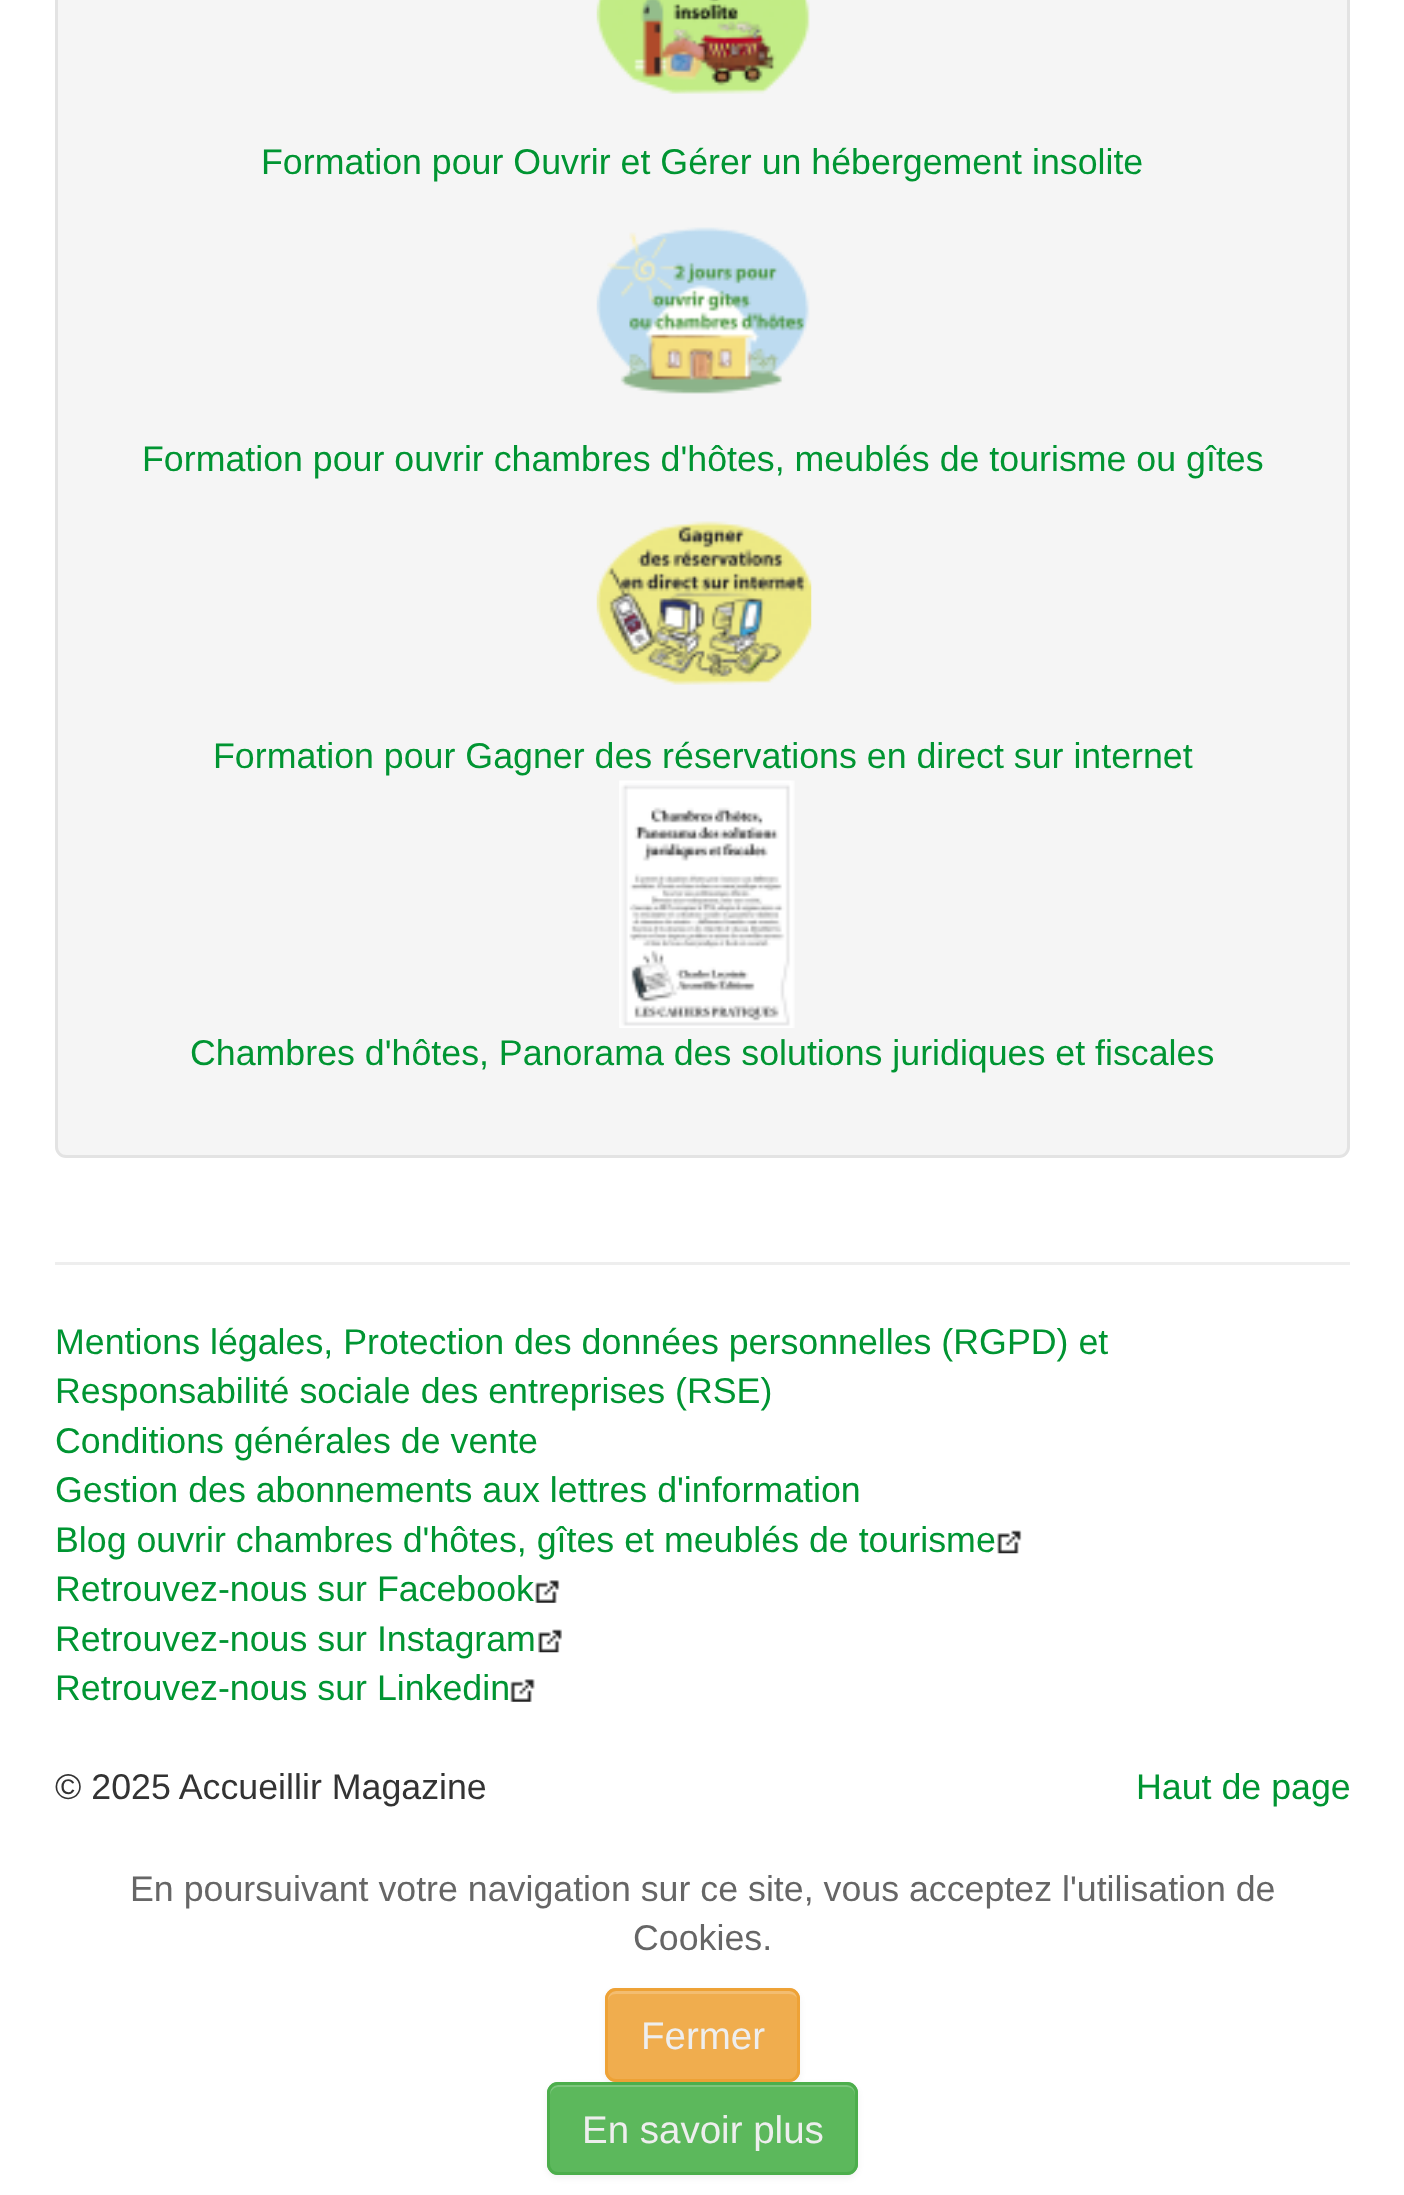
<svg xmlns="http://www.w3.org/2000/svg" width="1404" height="2195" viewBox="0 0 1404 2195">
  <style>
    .t1 { font: 35.75px Liberation Sans; fill: #009532; }
    .t2 { font: 35.75px Liberation Sans; fill: #333; }
    .t3 { font: 35.75px Liberation Sans; fill: #666; }
    .t4 { font: 38.5px Liberation Sans; fill: #eee; }
  </style>
  <rect width="100%" height="100%" fill="#fff"/>
  <rect x="56.5" y="-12.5" width="1292" height="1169" rx="9.5" fill="#f5f5f5" stroke="#e3e3e3" stroke-width="3"/>
  <image x="596" y="0" width="214" height="94" href="images/1.png"/>
  <text x="261" y="174" class="t1">Formation pour Ouvrir et Gérer un hébergement insolite</text>
  <image x="596" y="227" width="214" height="167" href="images/2.png"/>
  <text x="142" y="471" class="t1">Formation pour ouvrir chambres d'hôtes, meublés de tourisme ou gîtes</text>
  <image x="596" y="521" width="216" height="164" href="images/3.png"/>
  <text x="213" y="768" class="t1">Formation pour Gagner des réservations en direct sur internet</text>
  <image x="619" y="780" width="176" height="248" href="images/4.png"/>
  <text x="190" y="1065" class="t1">Chambres d'hôtes, Panorama des solutions juridiques et fiscales</text>
  <rect x="55" y="1262" width="1295" height="3" fill="#eee"/>
  <text x="55" y="1354" class="t1">Mentions légales, Protection des données personnelles (RGPD) et</text>
  <text x="55" y="1403" class="t1">Responsabilité sociale des entreprises (RSE)</text>
  <text x="55" y="1453" class="t1">Conditions générales de vente</text>
  <text x="55" y="1502" class="t1">Gestion des abonnements aux lettres d'information</text>
  <text x="55" y="1552" class="t1">Blog ouvrir chambres d'hôtes, gîtes et meublés de tourisme</text>
  <image x="997" y="1530" width="25" height="24" href="images/5.png"/>
  <text x="55" y="1601" class="t1">Retrouvez-nous sur Facebook</text>
  <image x="535" y="1580" width="25" height="23" href="images/6.png"/>
  <text x="55" y="1651" class="t1">Retrouvez-nous sur Instagram</text>
  <image x="538" y="1629" width="24" height="24" href="images/7.png"/>
  <text x="55" y="1700" class="t1">Retrouvez-nous sur Linkedin</text>
  <image x="510" y="1679" width="25" height="23" href="images/8.png"/>
  <text x="55" y="1799" class="t2">© 2025 Accueillir Magazine</text>
  <text x="1136" y="1799" class="t1">Haut de page</text>
  <text x="130" y="1901" class="t3">En poursuivant votre navigation sur ce site, vous acceptez l'utilisation de</text>
  <text x="633" y="1950" class="t3">Cookies.</text>
  <rect x="605" y="1991" width="195" height="94" rx="11" fill="#0000000d" filter="blur(3px)"/>
  <rect x="605" y="1988" width="195" height="94" rx="11" fill="#f0ad4e"/>
  <path d="M616 1994H789C794 1994 798 1997 798 2002V1999C798 1995 794 1991 790 1991H616C612 1991 608 1995 608 1999V2002C608 1997 611 1994 616 1994Z" fill="#f3bd71"/>
  <rect x="606.5" y="1989.5" width="192" height="91" rx="9.5" fill="none" stroke="#eea236" stroke-width="3"/>
  <text x="641" y="2049" class="t4">Fermer</text>
  <rect x="547" y="2085" width="311" height="93" rx="11" fill="#0000000d" filter="blur(3px)"/>
  <rect x="547" y="2082" width="311" height="93" rx="11" fill="#5cb85c"/>
  <path d="M558 2087H847C852 2087 855 2091 855 2096V2093C855 2089 851 2085 847 2085H558C554 2085 550 2089 550 2093V2096C550 2091 554 2087 558 2087Z" fill="#7dc67d"/>
  <rect x="548.5" y="2083.5" width="308" height="90" rx="9.5" fill="none" stroke="#4cae4c" stroke-width="3"/>
  <text x="582" y="2143" class="t4">En savoir plus</text>
</svg>
